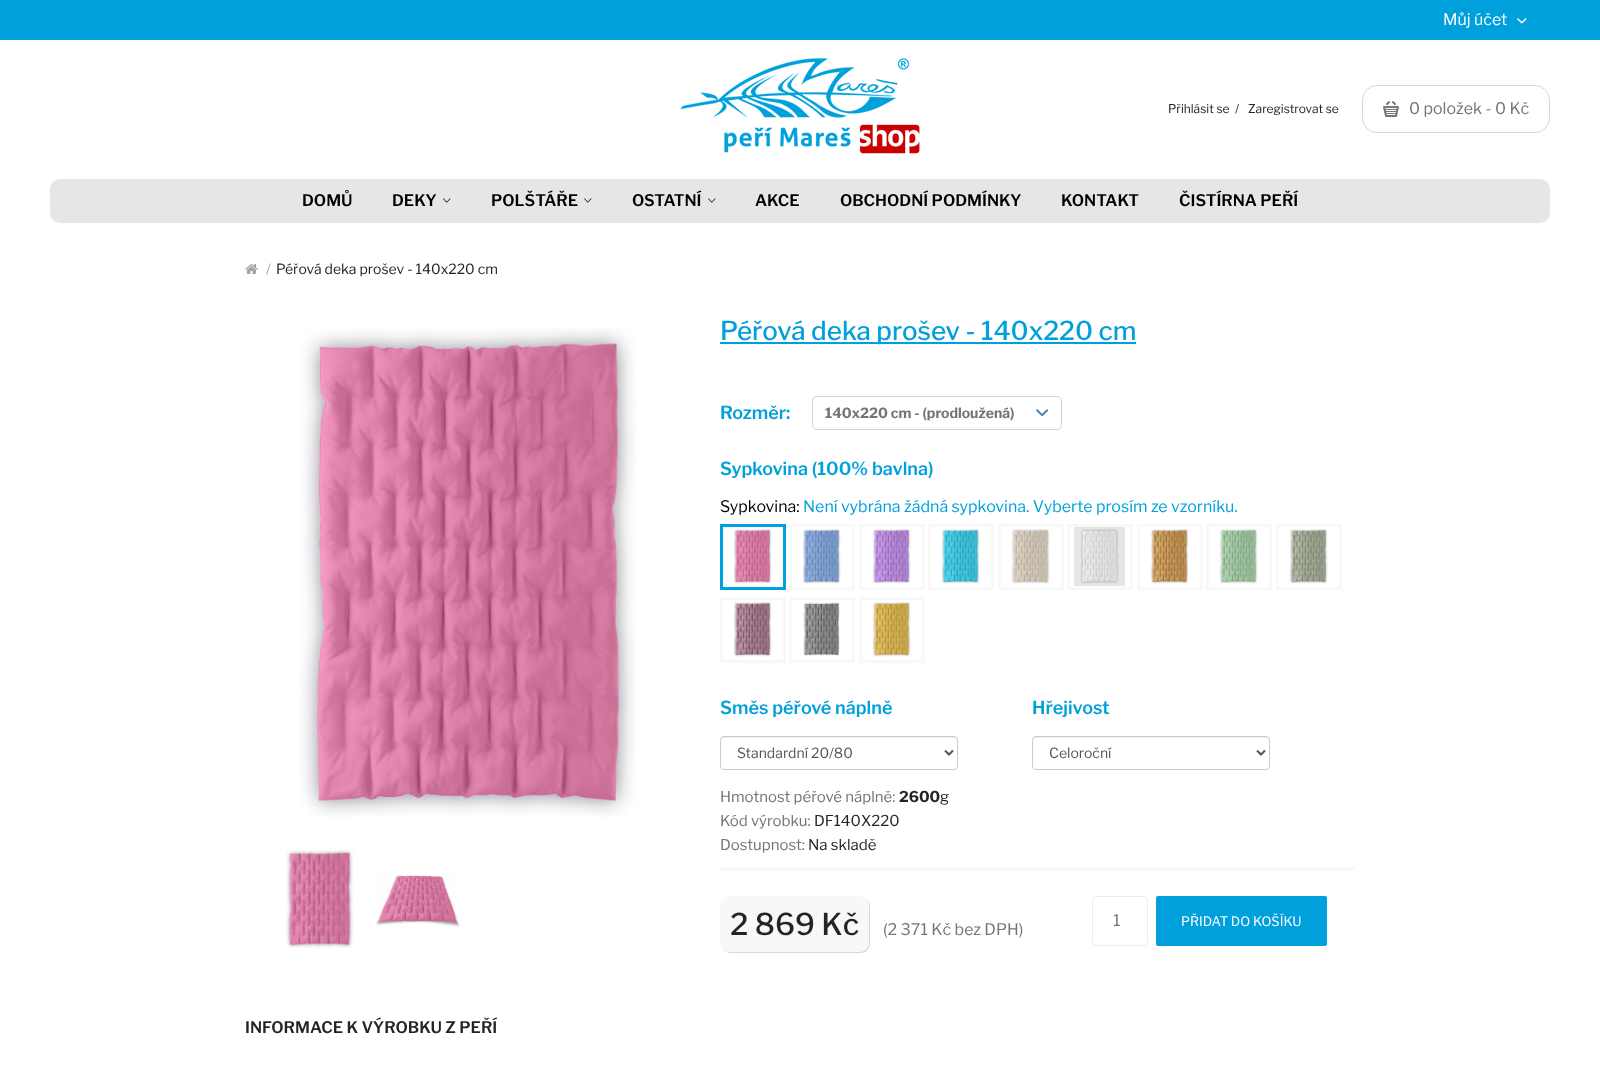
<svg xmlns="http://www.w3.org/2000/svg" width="1600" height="1070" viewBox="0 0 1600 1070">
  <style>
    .t1 { font: 16px Libre Franklin; fill: #fff; }
    .t2 { font: 12px Libre Franklin; fill: #242424; }
    .t3 { font: 16px Libre Franklin; fill: #747474; }
    .t4 { font: 600 16px Libre Franklin; fill: #000; }
    .t5 { font: 14px Libre Franklin; fill: #a4a4a4; }
    .t6 { font: 14px Libre Franklin; fill: #242424; }
    .t7 { font: 500 26px Libre Franklin; fill: #00a0dc; }
    .t8 { font: 600 18px Libre Franklin; fill: #00a0dc; }
    .t9 { font: bold 14px Libre Franklin; fill: #747474; }
    .t10 { font: 16px Libre Franklin; fill: #000; }
    .t11 { font: 16px Libre Franklin; fill: #00a0dc; }
    .t12 { font: 14px Libre Franklin; fill: #555; }
    .t13 { font: 15px Libre Franklin; fill: #747474; }
    .t14 { font: bold 15px Libre Franklin; fill: #242424; }
    .t15 { font: 15px Libre Franklin; fill: #242424; }
    .t16 { font: 500 30px Libre Franklin; fill: #242424; }
    .t17 { font: 13px Libre Franklin; fill: #fff; }
    .t18 { font: 600 16px Libre Franklin; fill: #242424; }
  </style>
  <rect width="100%" height="100%" fill="#fff"/>
  <rect x="0" y="0" width="1600" height="40" fill="#00a0dc"/>
  <text x="1443" y="25" class="t1">Můj účet</text>
  <image x="1517" y="18" width="10" height="6" href="images/1.png"/>
  <image x="680" y="58" width="240" height="96" href="images/2.png"/>
  <text x="1168" y="113" class="t2">Přihlásit se</text>
  <text x="1235" y="113" class="t2">/</text>
  <text x="1248" y="113" class="t2">Zaregistrovat se</text>
  <image x="1383" y="101" width="16" height="16" href="images/3.png"/>
  <rect x="1362.5" y="85.5" width="187" height="47" rx="14.5" fill="none" stroke="#d7d7d7"/>
  <text x="1409" y="114" class="t3">0 položek - 0 Kč</text>
  <rect x="50" y="179" width="1500" height="44" rx="10" fill="#e6e6e6"/>
  <text x="302" y="206" class="t4">DOMŮ</text>
  <text x="392" y="206" class="t4">DEKY</text>
  <image x="443" y="198" width="8" height="5" href="images/4.png"/>
  <text x="491" y="206" class="t4">POLŠTÁŘE</text>
  <image x="584" y="198" width="8" height="5" href="images/4.png"/>
  <text x="632" y="206" class="t4">OSTATNÍ</text>
  <image x="708" y="198" width="8" height="5" href="images/4.png"/>
  <text x="755" y="206" class="t4">AKCE</text>
  <text x="840" y="206" class="t4">OBCHODNÍ PODMÍNKY</text>
  <text x="1061" y="206" class="t4">KONTAKT</text>
  <text x="1179" y="206" class="t4">ČISTÍRNA PEŘÍ</text>
  <image x="245" y="264" width="13" height="10" href="images/5.png"/>
  <text x="266" y="274" class="t5">/</text>
  <text x="276" y="274" class="t6">Péřová deka prošev - 140x220 cm</text>
  <image x="300" y="328" width="336" height="489" href="images/6.png"/>
  <image x="286" y="850" width="68" height="98" href="images/7.png"/>
  <image x="375" y="875" width="85" height="52" href="images/8.png"/>
  <rect x="720" y="342" width="416" height="2" fill="#00a0dc"/>
  <text x="720" y="340" class="t7">Péřová deka prošev - 140x220 cm</text>
  <text x="720" y="419" class="t8">Rozměr:</text>
  <rect x="812.5" y="396.5" width="249" height="33" rx="4.5" fill="none" stroke="#d3d3d3"/>
  <text x="825" y="418" class="t9">140x220 cm - (prodloužená)</text>
  <image x="1036" y="409" width="13" height="8" href="images/9.png"/>
  <text x="720" y="475" class="t8">Sypkovina (100% bavlna)</text>
  <text x="720" y="512" class="t10">Sypkovina:</text>
  <text x="803" y="512" class="t11">Není vybrána žádná sypkovina. Vyberte prosím ze vzorníku.</text>
  <rect x="721.5" y="525.5" width="63" height="63" fill="none" stroke="#00a0dc" stroke-width="3"/>
  <image x="733" y="529" width="39" height="55" href="images/10.png"/>
  <rect x="790.5" y="525.5" width="63" height="63" fill="none" stroke="#f8f8f8" stroke-width="3"/>
  <image x="802" y="529" width="39" height="55" href="images/11.png"/>
  <rect x="860.5" y="525.5" width="63" height="63" fill="none" stroke="#f8f8f8" stroke-width="3"/>
  <image x="872" y="529" width="39" height="55" href="images/12.png"/>
  <rect x="929.5" y="525.5" width="63" height="63" fill="none" stroke="#f8f8f8" stroke-width="3"/>
  <image x="941" y="529" width="39" height="55" href="images/13.png"/>
  <rect x="999.5" y="525.5" width="63" height="63" fill="none" stroke="#f8f8f8" stroke-width="3"/>
  <image x="1011" y="529" width="39" height="55" href="images/14.png"/>
  <rect x="1068.5" y="525.5" width="63" height="63" fill="none" stroke="#f8f8f8" stroke-width="3"/>
  <image x="1074" y="527" width="51" height="59" href="images/15.png"/>
  <rect x="1138.5" y="525.5" width="63" height="63" fill="none" stroke="#f8f8f8" stroke-width="3"/>
  <image x="1150" y="529" width="39" height="55" href="images/16.png"/>
  <rect x="1207.5" y="525.5" width="63" height="63" fill="none" stroke="#f8f8f8" stroke-width="3"/>
  <image x="1219" y="529" width="39" height="55" href="images/17.png"/>
  <rect x="1277.5" y="525.5" width="63" height="63" fill="none" stroke="#f8f8f8" stroke-width="3"/>
  <image x="1289" y="529" width="39" height="55" href="images/18.png"/>
  <rect x="721.5" y="598.5" width="63" height="63" fill="none" stroke="#f8f8f8" stroke-width="3"/>
  <image x="733" y="602" width="39" height="55" href="images/19.png"/>
  <rect x="790.5" y="598.5" width="63" height="63" fill="none" stroke="#f8f8f8" stroke-width="3"/>
  <image x="803" y="602" width="37" height="54" href="images/20.png"/>
  <rect x="860.5" y="598.5" width="63" height="63" fill="none" stroke="#f8f8f8" stroke-width="3"/>
  <image x="872" y="602" width="39" height="55" href="images/21.png"/>
  <text x="720" y="714" class="t8">Směs péřové náplně</text>
  <path d="M724 738H955L957 739V741C957 739 956 737 954 737H724C722 737 721 739 721 741C721 739 722 738 724 738Z" fill="#ececec"/>
  <rect x="720.5" y="736.5" width="237" height="33" rx="3.5" fill="none" stroke="#ccc"/>
  <path d="M945 750.5L949 754.5L953 750.5" fill="none" stroke="#555" stroke-width="2"/>
  <text x="737" y="758" class="t12">Standardní 20/80</text>
  <text x="1032" y="714" class="t8">Hřejivost</text>
  <path d="M1036 738H1267L1269 739V741C1269 739 1268 737 1266 737H1036C1034 737 1033 739 1033 741C1033 739 1034 738 1036 738Z" fill="#ececec"/>
  <rect x="1032.5" y="736.5" width="237" height="33" rx="3.5" fill="none" stroke="#ccc"/>
  <path d="M1257 750.5L1261 754.5L1265 750.5" fill="none" stroke="#555" stroke-width="2"/>
  <text x="1049" y="758" class="t12">Celoroční</text>
  <rect x="720" y="867" width="635" height="4" fill="#f8f8f8"/>
  <text x="720" y="802" class="t13">Hmotnost péřové náplně:</text>
  <text x="899" y="802" class="t14">2600</text>
  <text x="940" y="802" class="t15">g</text>
  <text x="720" y="826" class="t13">Kód výrobku:</text>
  <text x="814" y="826" class="t15">DF140X220</text>
  <text x="720" y="850" class="t13">Dostupnost:</text>
  <text x="808" y="850" class="t15">Na skladě</text>
  <path d="M723 950C725 952 728 953 731 953H860C866 953 870 949 870 943V907C870 904 869 901 867 899C868 901 869 903 869 906V942C869 948 865 952 859 952H730C727 952 725 951 723 950Z" fill="#d8d8d8"/>
  <rect x="720" y="896" width="149" height="56" rx="10" fill="#f8f8f8"/>
  <text x="730" y="935" class="t16">2 869 Kč</text>
  <text x="883" y="935" class="t3">(2 371 Kč bez DPH)</text>
  <rect x="1092.5" y="896.5" width="55" height="49" rx="4.5" fill="none" stroke="#ebebeb"/>
  <text x="1113" y="926" class="t3">1</text>
  <rect x="1156" y="896" width="171" height="50" rx="2" fill="#00a0dc"/>
  <text x="1181" y="926" class="t17">PŘIDAT DO KOŠÍKU</text>
  <text x="245" y="1033" class="t18">INFORMACE K VÝROBKU Z PEŘÍ</text>
</svg>
